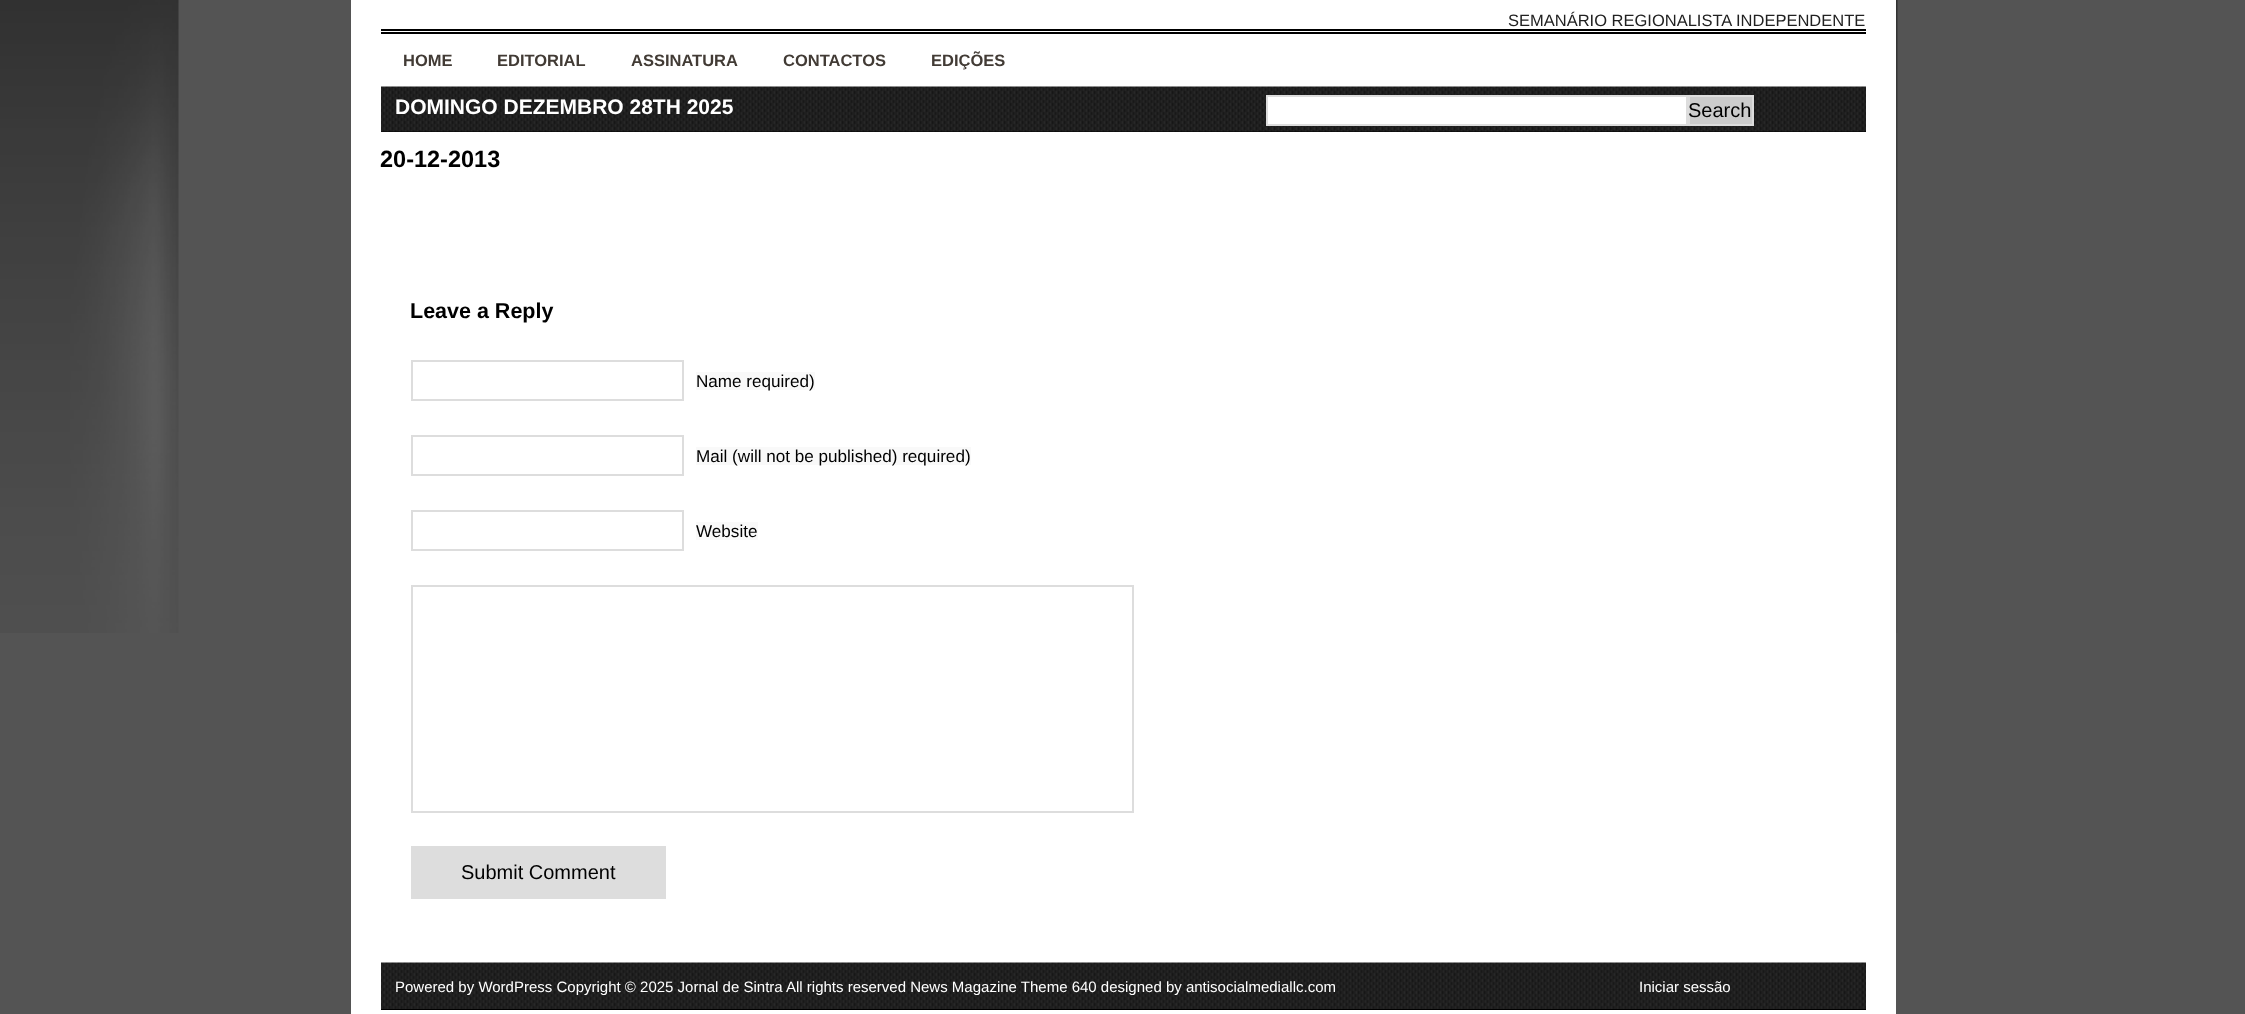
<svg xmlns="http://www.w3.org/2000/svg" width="2245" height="1014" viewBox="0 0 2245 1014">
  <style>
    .t1 { font: 16.5px Liberation Sans; fill: #212121; }
    .t2 { font: bold 16.5px Liberation Sans; fill: #423b35; }
    .t3 { font: bold 21px Liberation Sans; fill: #fff; }
    .t4 { font: 20px Liberation Sans; fill: #000; }
    .t5 { font: bold 23.5px Liberation Sans; fill: #000; }
    .t6 { font: bold 21.5px Liberation Sans; fill: #000; }
    .t7 { font: 17.1px Liberation Sans; fill: #000; }
    .t8 { font: 15px Liberation Sans; fill: #fff; }
  </style>
  <rect width="100%" height="100%" fill="#545454"/>
  <image x="0" y="0" width="1898" height="633" href="images/1.png"/>
  <rect x="351" y="0" width="1545" height="1014" fill="#fff"/>
  <text x="1508" y="26" class="t1">SEMANÁRIO REGIONALISTA INDEPENDENTE</text>
  <rect x="381" y="29" width="1485" height="2" fill="#000"/>
  <rect x="381" y="32" width="1485" height="2" fill="#000"/>
  <text x="403" y="66" class="t2">HOME</text>
  <text x="497" y="66" class="t2">EDITORIAL</text>
  <text x="631" y="66" class="t2">ASSINATURA</text>
  <text x="783" y="66" class="t2">CONTACTOS</text>
  <text x="931" y="66" class="t2">EDIÇÕES</text>
  <rect x="381" y="131" width="1485" height="1" fill="#000"/>
  <image x="381" y="86" width="1485" height="46" href="images/2.png"/>
  <text x="395" y="114" class="t3">DOMINGO DEZEMBRO 28TH 2025</text>
  <rect x="1267" y="96" width="420" height="29" fill="#fff" stroke="#ddd" stroke-width="2"/>
  <rect x="1689" y="96" width="64" height="29" fill="#ccc" stroke="#ddd" stroke-width="2"/>
  <text x="1688" y="117" class="t4">Search</text>
  <text x="380" y="167" class="t5">20-12-2013</text>
  <text x="410" y="318" class="t6">Leave a Reply</text>
  <rect x="412" y="361" width="271" height="39" fill="none" stroke="#ddd" stroke-width="2"/>
  <rect x="696" y="372" width="119" height="18" fill="#f9f9f9"/>
  <text x="696" y="387" class="t7">Name required)</text>
  <rect x="412" y="436" width="271" height="39" fill="none" stroke="#ddd" stroke-width="2"/>
  <rect x="696" y="447" width="275" height="18" fill="#f9f9f9"/>
  <text x="696" y="462" class="t7">Mail (will not be published) required)</text>
  <rect x="412" y="511" width="271" height="39" fill="none" stroke="#ddd" stroke-width="2"/>
  <rect x="696" y="522" width="62" height="18" fill="#f9f9f9"/>
  <text x="696" y="537" class="t7">Website</text>
  <rect x="412" y="586" width="721" height="226" fill="none" stroke="#ddd" stroke-width="2"/>
  <rect x="411" y="846" width="255" height="53" fill="#ddd"/>
  <text x="461" y="879" class="t4">Submit Comment</text>
  <rect x="381" y="1009" width="1485" height="1" fill="#000"/>
  <image x="381" y="962" width="1485" height="47" href="images/3.png"/>
  <text x="395" y="992" class="t8">Powered by WordPress Copyright © 2025 Jornal de Sintra All rights reserved News Magazine Theme 640 designed by antisocialmediallc.com</text>
  <text x="1639" y="992" class="t8">Iniciar sessão</text>
</svg>
